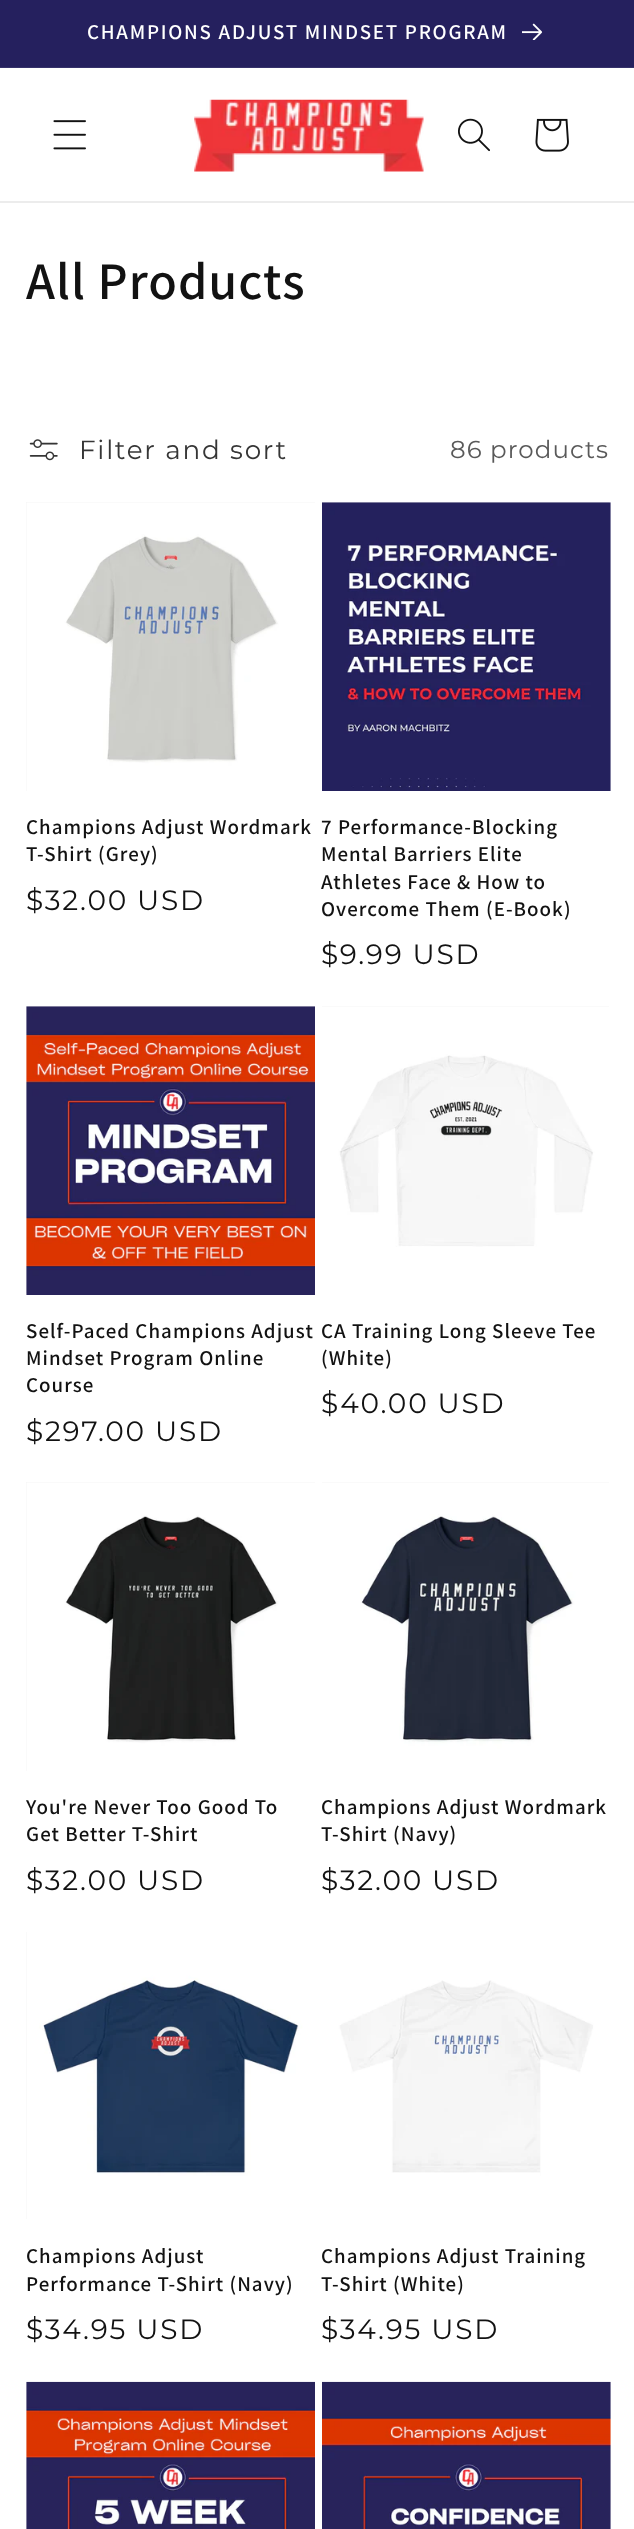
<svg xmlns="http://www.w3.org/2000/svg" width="634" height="2529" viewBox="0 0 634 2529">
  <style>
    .t1 { font: 600 21px Assistant; letter-spacing: 1.75px; fill: #fff; }
    .t2 { font: 600 52.5px Assistant; letter-spacing: 1.05px; fill: #121212; }
    .t3 { font: 26.25px Montserrat; letter-spacing: 1.75px; fill: #363636; }
    .t4 { font: 24.5px Montserrat; letter-spacing: 1.05px; fill: #595959; }
    .t5 { font: 600 21px Assistant; letter-spacing: 1.05px; fill: #121212; }
    .t6 { font: 28px Montserrat; letter-spacing: 1.75px; fill: #121212; }
  </style>
  <rect width="100%" height="100%" fill="#fff"/>
  <rect x="0" y="0" width="634" height="67" fill="#25205e"/>
  <rect x="0" y="67" width="634" height="1" fill="#36326b"/>
  <text x="87" y="39" class="t1">CHAMPIONS ADJUST MINDSET PROGRAM</text>
  <image x="522" y="23" width="21" height="17" href="images/1.png"/>
  <rect x="0" y="201" width="634" height="2" fill="#ececec"/>
  <image x="53" y="120" width="33" height="30" href="images/2.png"/>
  <image x="194" y="99" width="230" height="73" href="images/3.png"/>
  <image x="458" y="118" width="32" height="34" href="images/4.png"/>
  <image x="535" y="118" width="34" height="34" href="images/5.png"/>
  <text x="26" y="299" class="t2">All Products</text>
  <image x="29" y="439" width="29" height="22" href="images/6.png"/>
  <text x="79" y="459" class="t3">Filter and sort</text>
  <text x="450" y="458" class="t4">86 products</text>
  <rect x="26" y="502" width="289" height="289" fill="#f3f3f3"/>
  <image x="26" y="502" width="289" height="289" href="images/7.png"/>
  <text x="26" y="834" class="t5">Champions Adjust Wordmark</text>
  <text x="26" y="861" class="t5">T-Shirt (Grey)</text>
  <text x="26" y="910" class="t6">$32.00 USD</text>
  <rect x="322" y="502" width="287" height="1" fill="#f3f3f3"/>
  <image x="322" y="502" width="289" height="289" href="images/8.png"/>
  <text x="321" y="834" class="t5">7 Performance-Blocking</text>
  <text x="321" y="861" class="t5">Mental Barriers Elite</text>
  <text x="321" y="889" class="t5">Athletes Face &amp; How to</text>
  <text x="321" y="916" class="t5">Overcome Them (E-Book)</text>
  <text x="321" y="964" class="t6">$9.99 USD</text>
  <rect x="26" y="1006" width="289" height="287" fill="#f3f3f3"/>
  <image x="26" y="1006" width="289" height="289" href="images/9.png"/>
  <text x="26" y="1338" class="t5">Self-Paced Champions Adjust</text>
  <text x="26" y="1365" class="t5">Mindset Program Online</text>
  <text x="26" y="1392" class="t5">Course</text>
  <text x="26" y="1441" class="t6">$297.00 USD</text>
  <rect x="322" y="1006" width="287" height="1" fill="#f3f3f3"/>
  <image x="322" y="1006" width="287" height="287" href="images/10.png"/>
  <text x="321" y="1338" class="t5">CA Training Long Sleeve Tee</text>
  <text x="321" y="1365" class="t5">(White)</text>
  <text x="321" y="1413" class="t6">$40.00 USD</text>
  <rect x="26" y="1482" width="289" height="289" fill="#f3f3f3"/>
  <image x="26" y="1482" width="289" height="289" href="images/11.png"/>
  <text x="26" y="1814" class="t5">You're Never Too Good To</text>
  <text x="26" y="1841" class="t5">Get Better T-Shirt</text>
  <text x="26" y="1890" class="t6">$32.00 USD</text>
  <rect x="322" y="1482" width="287" height="1" fill="#f3f3f3"/>
  <image x="322" y="1482" width="287" height="289" href="images/12.png"/>
  <text x="321" y="1814" class="t5">Champions Adjust Wordmark</text>
  <text x="321" y="1841" class="t5">T-Shirt (Navy)</text>
  <text x="321" y="1890" class="t6">$32.00 USD</text>
  <rect x="26" y="1932" width="1" height="287" fill="#f3f3f3"/>
  <image x="26" y="1932" width="289" height="287" href="images/13.png"/>
  <text x="26" y="2263" class="t5">Champions Adjust</text>
  <text x="26" y="2291" class="t5">Performance T-Shirt (Navy)</text>
  <text x="26" y="2339" class="t6">$34.95 USD</text>
  <image x="322" y="1932" width="287" height="287" href="images/14.png"/>
  <text x="321" y="2263" class="t5">Champions Adjust Training</text>
  <text x="321" y="2291" class="t5">T-Shirt (White)</text>
  <text x="321" y="2339" class="t6">$34.95 USD</text>
  <rect x="26" y="2382" width="1" height="147" fill="#f3f3f3"/>
  <image x="26" y="2381" width="289" height="148" href="images/15.png"/>
  <image x="322" y="2381" width="289" height="148" href="images/16.png"/>
</svg>
